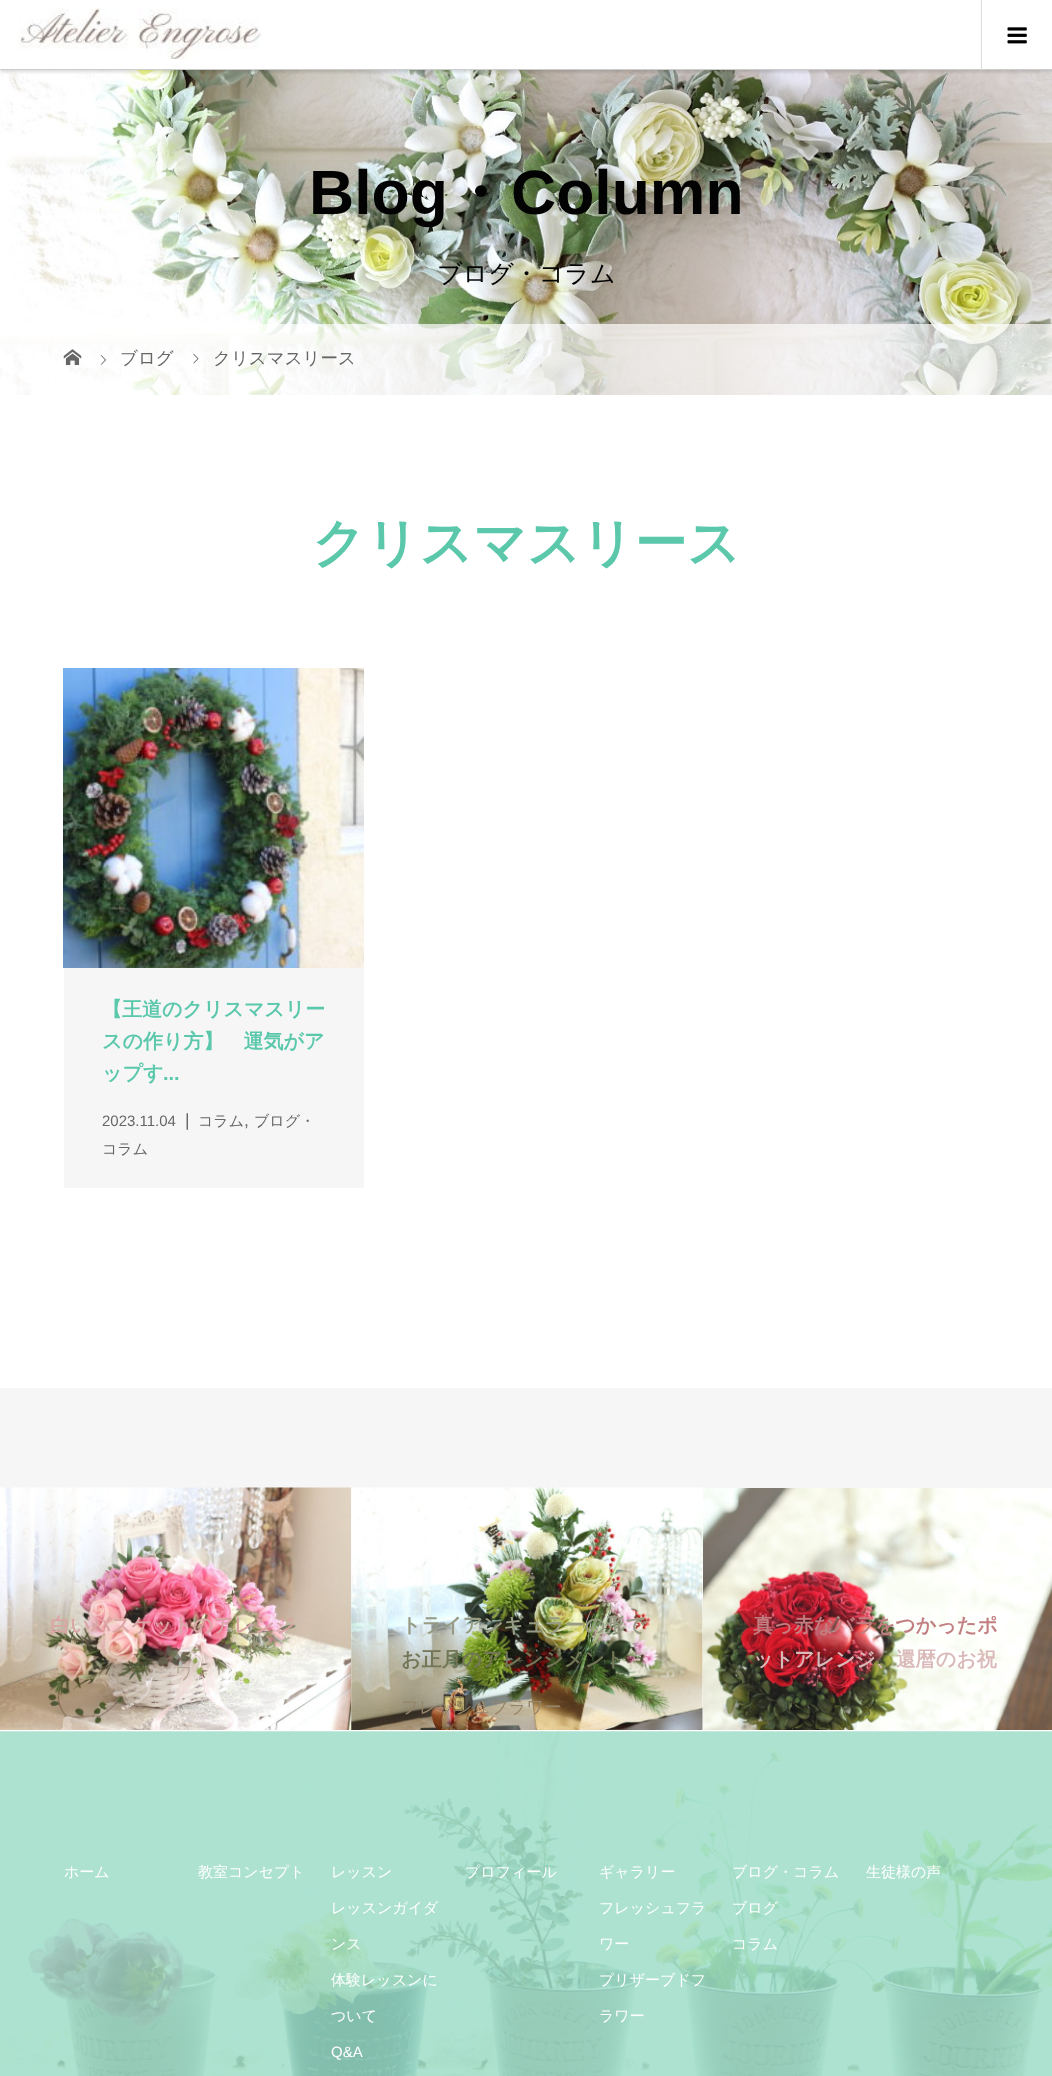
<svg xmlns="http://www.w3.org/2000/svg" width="1052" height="2076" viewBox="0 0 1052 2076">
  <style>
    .t1 { font: bold 62.5px Liberation Sans; fill: #030303; }
    .t2 { font: bold 62.5px WenQuanYi Zen Hei; fill: #030303; }
    .t3 { font: 500 25px WenQuanYi Zen Hei; fill: #030303; }
    .t4 { font: 500 17.5px WenQuanYi Zen Hei; fill: #666; }
    .t5 { font: bold 52.5px WenQuanYi Zen Hei; fill: #5bc8ac; }
    .t6 { font: bold 20px WenQuanYi Zen Hei; fill: #5bc8ac; }
    .t7 { font: bold 20px Liberation Sans; fill: #5bc8ac; }
    .t8 { font: 15px Liberation Sans; fill: #666; }
    .t9 { font: 17.5px Liberation Sans; fill: #666; }
    .t10 { font: 500 15px WenQuanYi Zen Hei; fill: #666; }
    .t11 { font: bold 20px WenQuanYi Zen Hei; fill: #d9a5a5; }
    .t12 { font: 500 17.5px WenQuanYi Zen Hei; fill: #b5a693; }
    .t13 { font: bold 20px WenQuanYi Zen Hei; fill: #979b84; }
    .t14 { font: bold 20px WenQuanYi Zen Hei; fill: #727656; }
    .t15 { font: 500 17.5px WenQuanYi Zen Hei; fill: #96856a; }
    .t16 { font: bold 20px WenQuanYi Zen Hei; fill: #c27f81; }
    .t17 { font: bold 20px WenQuanYi Zen Hei; fill: #dab9b9; }
    .t18 { font: 500 15px WenQuanYi Zen Hei; fill: #fff; }
    .t19 { font: 15px Liberation Sans; fill: #fff; }
  </style>
  <defs>
    <clipPath id="clip1"><rect x="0" y="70" width="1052" height="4"/></clipPath>
  </defs>
  <rect width="100%" height="100%" fill="#fff"/>
  <image x="0" y="70" width="1052" height="325" href="images/3.png"/>
  <g clip-path="url(#clip1)">
    <rect x="0" y="1" width="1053" height="70" fill="#00000033" filter="blur(2.5px)"/>
  </g>
  <rect x="0" y="69" width="1052" height="1" fill="#ccc"/>
  <image x="19" y="8" width="243" height="51" href="images/1.png"/>
  <rect x="981" y="0" width="1" height="70" fill="#ddd"/>
  <image x="1007" y="27" width="20" height="17" href="images/2.png"/>
  <text x="309" y="214" class="t1">Blog</text>
  <text x="448" y="214" class="t2">・</text>
  <text x="511" y="214" class="t1">Column</text>
  <text x="437" y="282" class="t3">ブログ・コラム</text>
  <rect x="0" y="324" width="1052" height="71" fill="#ffffffb3"/>
  <image x="63" y="349" width="19" height="16" href="images/4.png"/>
  <image x="100" y="355" width="6" height="10" href="images/5.png"/>
  <text x="120" y="364" class="t4">ブログ</text>
  <image x="193" y="353" width="6" height="11" href="images/6.png"/>
  <text x="213" y="364" class="t4">クリスマスリース</text>
  <text x="312" y="561" class="t5">クリスマスリース</text>
  <rect x="64" y="968" width="300" height="220" fill="#f6f6f6"/>
  <image x="63" y="668" width="301" height="300" href="images/7.png"/>
  <text x="102" y="1016" class="t6">【王道のクリスマスリー</text>
  <text x="102" y="1048" class="t6">スの作り方】　運気がア</text>
  <text x="102" y="1080" class="t6">ップす</text>
  <text x="163" y="1080" class="t7">...</text>
  <text x="102" y="1126" class="t8">2023.11.04</text>
  <text x="185" y="1126" class="t9">|</text>
  <text x="198" y="1126" class="t10">コラム</text>
  <text x="244" y="1126" class="t9">,</text>
  <text x="254" y="1126" class="t10">ブログ・</text>
  <text x="102" y="1154" class="t10">コラム</text>
  <rect x="0" y="1388" width="1052" height="100" fill="#f6f6f6"/>
  <image x="0" y="1487" width="352" height="243" href="images/8.png"/>
  <text x="50" y="1632" class="t11">白いバスケットのアレンジ</text>
  <text x="175" y="1679" class="t12">ワ</text>
  <image x="351" y="1487" width="352" height="243" href="images/9.png"/>
  <text x="401" y="1632" class="t13">トライアンギュラーの形で</text>
  <text x="401" y="1666" class="t14">お正月のアレンジメント</text>
  <text x="401" y="1713" class="t15">フレッシュフラワー</text>
  <image x="703" y="1488" width="349" height="242" href="images/10.png"/>
  <text x="753" y="1632" class="t16">真っ赤なバラをつかったポ</text>
  <text x="753" y="1666" class="t17">ットアレンジ、還暦のお祝</text>
  <image x="0" y="1731" width="1052" height="345" href="images/11.png"/>
  <text x="64" y="1877" class="t18">ホーム</text>
  <text x="198" y="1877" class="t18">教室コンセプト</text>
  <text x="331" y="1877" class="t18">レッスン</text>
  <text x="331" y="1913" class="t18">レッスンガイダ</text>
  <text x="331" y="1949" class="t18">ンス</text>
  <text x="331" y="1985" class="t18">体験レッスンに</text>
  <text x="331" y="2021" class="t18">ついて</text>
  <text x="331" y="2057" class="t19">Q&amp;A</text>
  <text x="465" y="1877" class="t18">プロフィール</text>
  <text x="599" y="1877" class="t18">ギャラリー</text>
  <text x="599" y="1913" class="t18">フレッシュフラ</text>
  <text x="599" y="1949" class="t18">ワー</text>
  <text x="599" y="1985" class="t18">プリザーブドフ</text>
  <text x="599" y="2021" class="t18">ラワー</text>
  <text x="732" y="1877" class="t18">ブログ・コラム</text>
  <text x="732" y="1913" class="t18">ブログ</text>
  <text x="732" y="1949" class="t18">コラム</text>
  <text x="866" y="1877" class="t18">生徒様の声</text>
</svg>
